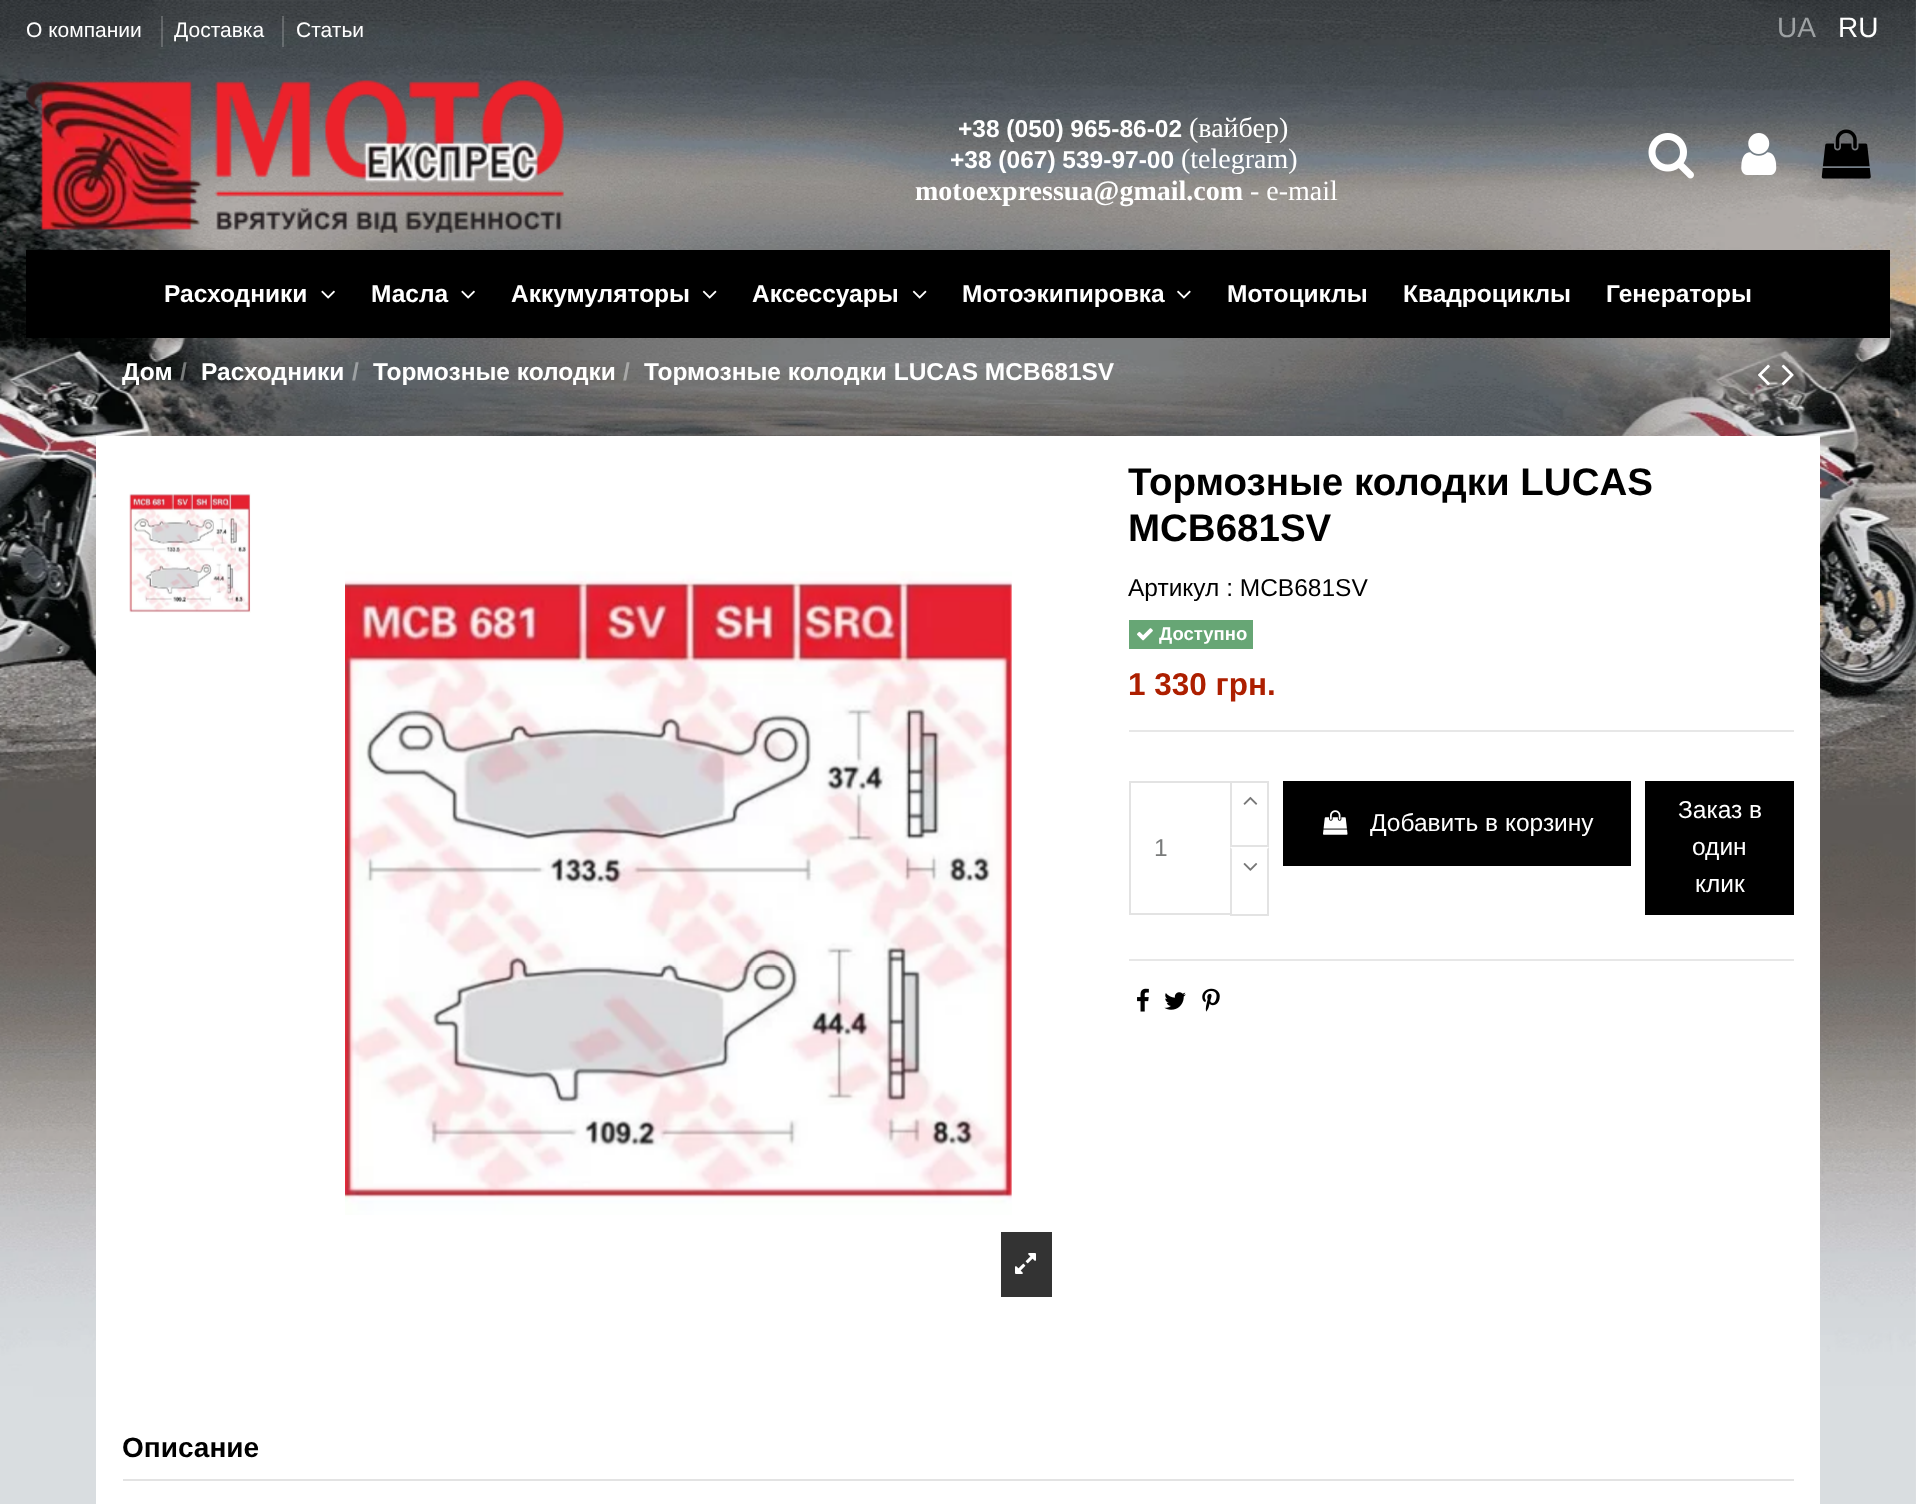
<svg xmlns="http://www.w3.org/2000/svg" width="1916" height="1504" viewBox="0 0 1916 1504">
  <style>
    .t1 { font: 21px Liberation Sans; fill: #fff; }
    .t2 { font: 28px Liberation Sans; fill: #9da1a3; }
    .t3 { font: 28px Liberation Sans; fill: #fff; }
    .t4 { font: bold 24.5px Liberation Sans; fill: #fff; }
    .t5 { font: 28px Liberation Serif; fill: #fff; }
    .t6 { font: bold 28px Liberation Serif; fill: #fff; }
    .t7 { font: bold 24.5px Liberation Sans; fill: #797b7b; }
    .t8 { font: bold 24.5px Liberation Sans; fill: #9da1a3; }
    .t9 { font: bold 24.5px Liberation Sans; fill: #a9a9a8; }
    .t10 { font: bold 38.5px Liberation Sans; fill: #000; }
    .t11 { font: 24.5px Liberation Sans; fill: #000; }
    .t12 { font: bold 18.5px Liberation Sans; fill: #fff; }
    .t13 { font: bold 31.5px Liberation Sans; fill: #ad1f00; }
    .t14 { font: 24.5px Liberation Sans; fill: #fff; }
    .t15 { font: 24.5px Liberation Sans; fill: #797b7b; }
    .t16 { font: bold 28px Liberation Sans; fill: #000; }
  </style>
  <rect width="100%" height="100%" fill="#fff"/>
  <image x="0" y="0" width="1916" height="1504" href="images/1.png"/>
  <text x="26" y="37" class="t1">О компании</text>
  <rect x="161" y="16" width="2" height="31" fill="#ffffff33"/>
  <text x="174" y="37" class="t1">Доставка</text>
  <rect x="282" y="16" width="2" height="31" fill="#ffffff33"/>
  <text x="296" y="37" class="t1">Статьи</text>
  <text x="1777" y="37" class="t2">UA</text>
  <text x="1838" y="37" class="t3">RU</text>
  <image x="26" y="80" width="538" height="153" href="images/2.png"/>
  <text x="958" y="137" class="t4">+38 (050) 965-86-02</text>
  <text x="1189" y="137" class="t5">(вайбер)</text>
  <text x="950" y="168" class="t4">+38 (067) 539-97-00</text>
  <text x="1181" y="168" class="t5">(telegram)</text>
  <text x="915" y="200" class="t6">motoexpressua@gmail.com</text>
  <text x="1250" y="200" class="t5">- e-mail</text>
  <image x="1648" y="133" width="46" height="46" href="images/3.png"/>
  <image x="1741" y="133" width="36" height="42" href="images/4.png"/>
  <image x="1821" y="129" width="50" height="50" href="images/5.png"/>
  <rect x="26" y="250" width="1864" height="88" fill="#000"/>
  <text x="164" y="302" class="t4">Расходники</text>
  <image x="321" y="290" width="14" height="9" href="images/6.png"/>
  <text x="371" y="302" class="t4">Масла</text>
  <image x="461" y="290" width="14" height="9" href="images/6.png"/>
  <text x="511" y="302" class="t4">Аккумуляторы</text>
  <image x="702" y="290" width="15" height="9" href="images/7.png"/>
  <text x="752" y="302" class="t4">Аксессуары</text>
  <image x="912" y="290" width="15" height="9" href="images/7.png"/>
  <text x="962" y="302" class="t4">Мотоэкипировка</text>
  <image x="1177" y="290" width="14" height="9" href="images/8.png"/>
  <text x="1227" y="302" class="t4">Мотоциклы</text>
  <text x="1403" y="302" class="t4">Квадроциклы</text>
  <text x="1606" y="302" class="t4">Генераторы</text>
  <text x="122" y="380" class="t4">Дом</text>
  <text x="180" y="380" class="t7">/</text>
  <text x="201" y="380" class="t4">Расходники</text>
  <text x="352" y="380" class="t8">/</text>
  <text x="373" y="380" class="t4">Тормозные колодки</text>
  <text x="623" y="380" class="t9">/</text>
  <text x="644" y="380" class="t4">Тормозные колодки LUCAS MCB681SV</text>
  <image x="1758" y="364" width="12" height="22" href="images/9.png"/>
  <image x="1781" y="364" width="13" height="22" href="images/10.png"/>
  <rect x="96" y="436" width="1724" height="1068" fill="#fff"/>
  <image x="129" y="493" width="122" height="120" href="images/11.png"/>
  <image x="345" y="571" width="667" height="644" href="images/12.png"/>
  <rect x="1001" y="1232" width="51" height="65" fill="#333"/>
  <image x="1015" y="1253" width="21" height="21" href="images/13.png"/>
  <rect x="1129" y="730" width="665" height="2" fill="#e7e7e7"/>
  <text x="1128" y="495" class="t10">Тормозные колодки LUCAS</text>
  <text x="1128" y="541" class="t10">MCB681SV</text>
  <text x="1128" y="596" class="t11">Артикул : MCB681SV</text>
  <rect x="1129" y="620" width="124" height="29" fill="#67a675"/>
  <image x="1137" y="628" width="16" height="13" href="images/14.png"/>
  <text x="1159" y="640" class="t12">Доступно</text>
  <text x="1128" y="695" class="t13">1 330 грн.</text>
  <rect x="1283" y="781" width="348" height="85" fill="#000"/>
  <image x="1323" y="810" width="25" height="25" href="images/15.png"/>
  <text x="1370" y="831" class="t14">Добавить в корзину</text>
  <rect x="1645" y="781" width="149" height="134" fill="#000"/>
  <text x="1678" y="818" class="t14">Заказ в</text>
  <text x="1692" y="855" class="t14">один</text>
  <text x="1695" y="892" class="t14">клик</text>
  <rect x="1130" y="782" width="101" height="132" fill="none" stroke="#e3e3e3" stroke-width="2"/>
  <text x="1154" y="856" class="t15">1</text>
  <rect x="1231" y="782" width="37" height="64" fill="none" stroke="#e3e3e3" stroke-width="2"/>
  <image x="1243" y="796" width="15" height="9" href="images/16.png"/>
  <rect x="1230" y="847" width="2" height="67" fill="#fff"/>
  <path d="M1269 847V915L1267 914V849Z" fill="#e3e3e3"/>
  <rect x="1230" y="914" width="39" height="2" fill="#e3e3e3"/>
  <path d="M1230 915V847L1232 849V914Z" fill="#e3e3e3"/>
  <image x="1243" y="863" width="15" height="8" href="images/17.png"/>
  <rect x="1129" y="959" width="665" height="2" fill="#e7e7e7"/>
  <image x="1137" y="988" width="12" height="24" href="images/18.png"/>
  <image x="1164" y="992" width="22" height="18" href="images/19.png"/>
  <image x="1202" y="988" width="18" height="24" href="images/20.png"/>
  <rect x="123" y="1479" width="1671" height="2" fill="#e3e3e3"/>
  <text x="122" y="1457" class="t16">Описание</text>
</svg>
